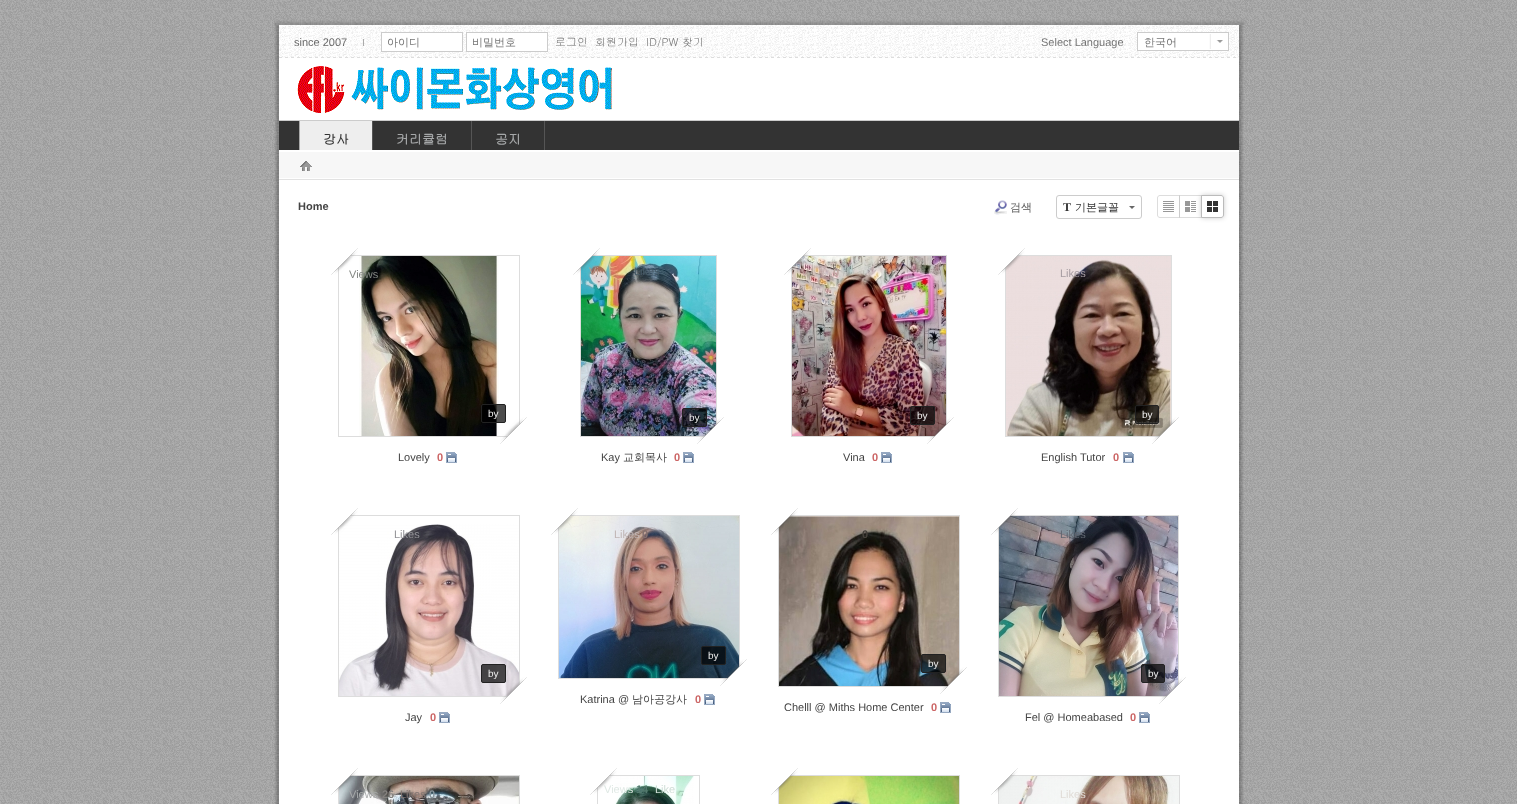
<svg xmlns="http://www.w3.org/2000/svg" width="1517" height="804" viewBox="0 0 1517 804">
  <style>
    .t1 { font: 11px Liberation Sans; fill: #696969; }
    .t2 { font: 500 11px WenQuanYi Zen Hei; fill: #757575; }
    .t3 { font: 11px Gulim; fill: #757575; }
    .t4 { font: 11px Liberation Sans; fill: #757575; }
    .t5 { font: bold 13px Gulim; fill: #333; }
    .t6 { font: bold 13px Gulim; fill: #a6a8a9; }
    .t7 { font: bold 11px Liberation Sans; fill: #444; }
    .t8 { font: 500 11px WenQuanYi Zen Hei; fill: #555; }
    .t9 { font: bold 12px Liberation Serif; fill: #333; }
    .t10 { font: 500 11px WenQuanYi Zen Hei; fill: #333; }
    .t11 { font: 11px Liberation Sans; fill: #848884; }
    .t12 { font: 10px Liberation Sans; fill: #eee; }
    .t13 { font: 11px Liberation Sans; fill: #444; }
    .t14 { font: bold 11px Liberation Sans; fill: #c66; }
    .t15 { font: 11px Liberation Sans; fill: #b39c8d; }
    .t16 { font: 11px Liberation Sans; fill: #495d69; }
    .t17 { font: 500 11px WenQuanYi Zen Hei; fill: #444; }
    .t18 { font: 11px Liberation Sans; fill: #bea8a2; }
    .t19 { font: bold 11px Liberation Sans; fill: #bea8a2; }
    .t20 { font: 11px Liberation Sans; fill: #a69ca1; }
    .t21 { font: 11px Liberation Sans; fill: #929297; }
    .t22 { font: 11px Liberation Sans; fill: #c0b6b5; }
    .t23 { font: bold 11px Liberation Sans; fill: #84706f; }
    .t24 { font: bold 11px Liberation Sans; fill: #46423c; }
    .t25 { font: 11px Liberation Sans; fill: #616771; }
    .t26 { font: 11px Liberation Sans; fill: #a6a8a9; }
    .t27 { font: bold 11px Liberation Sans; fill: #84817e; }
    .t28 { font: 11px Liberation Sans; fill: #837672; }
    .t29 { font: bold 11px Liberation Sans; fill: #86949c; }
    .t30 { font: 11px Liberation Sans; fill: #e0e9e5; }
    .t31 { font: bold 11px Liberation Sans; fill: #537a6e; }
    .t32 { font: 11px Liberation Sans; fill: #cfded7; }
    .t33 { font: 11px Liberation Sans; fill: #e1dcd7; }
  </style>
  <defs>
    <clipPath id="clip1"><path d="M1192 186H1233V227H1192ZM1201 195H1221C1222.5 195 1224 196.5 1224 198V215C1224 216.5 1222.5 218 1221 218H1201Z" clip-rule="evenodd"/></clipPath>
  </defs>
  <rect width="100%" height="100%" fill="#fff"/>
  <image x="0" y="0" width="1517" height="804" href="images/1.png"/>
  <image x="274" y="25" width="970" height="779" href="images/2.png"/>
  <image x="274" y="0" width="970" height="25" href="images/3.png"/>
  <image x="279" y="25" width="960" height="33" href="images/4.png"/>
  <rect x="363" y="39" width="1" height="7" fill="#aaa"/>
  <text x="294" y="46" class="t1">since 2007</text>
  <rect x="381.5" y="32.5" width="81" height="19" fill="#fff" stroke="#ccc"/>
  <text x="387" y="46" class="t2">아이디</text>
  <rect x="466.5" y="32.5" width="81" height="19" fill="#fff" stroke="#ccc"/>
  <text x="472" y="46" class="t2">비밀번호</text>
  <text x="555" y="46" class="t3">로그인</text>
  <text x="595" y="46" class="t3">회원가입</text>
  <text x="646" y="46" class="t3">ID/PW 찾기</text>
  <text x="1041" y="46" class="t4">Select Language</text>
  <rect x="1138" y="33" width="90" height="17" fill="#fff"/>
  <image x="1209" y="34" width="14" height="15" href="images/5.png"/>
  <rect x="1137.5" y="32.5" width="91" height="18" fill="none" stroke="#ccc"/>
  <text x="1144" y="46" class="t2">한국어</text>
  <image x="297" y="66" width="315" height="47" href="images/6.png"/>
  <rect x="279" y="121" width="960" height="29" fill="#333"/>
  <rect x="279" y="120" width="960" height="1" fill="#ccc"/>
  <rect x="300" y="121" width="72" height="29" fill="#eee"/>
  <rect x="299" y="121" width="1" height="29" fill="#aaa"/>
  <text x="323" y="144" class="t5">강사</text>
  <rect x="372" y="121" width="1" height="29" fill="#555"/>
  <text x="396" y="144" class="t6">커리큘럼</text>
  <rect x="544" y="121" width="1" height="29" fill="#555"/>
  <rect x="471" y="121" width="1" height="29" fill="#555"/>
  <text x="495" y="144" class="t6">공지</text>
  <image x="279" y="152" width="960" height="28" href="images/7.png"/>
  <image x="300" y="161" width="12" height="10" href="images/8.png"/>
  <text x="298" y="210" class="t7">Home</text>
  <image x="994" y="200" width="13" height="15" href="images/9.png"/>
  <text x="1010" y="211" class="t8">검색</text>
  <rect x="1056.5" y="195.5" width="85" height="23" rx="2.5" fill="none" stroke="#ccc"/>
  <text x="1063" y="211" class="t9">T</text>
  <text x="1075" y="211" class="t10">기본글꼴</text>
  <path d="M1129 206H1135L1132 209Z" fill="#666"/>
  <path d="M1160 195.5H1179.5V217.5H1160C1158.5 217.5 1157.5 216.5 1157.5 215V198C1157.5 196.5 1158.5 195.5 1160 195.5Z" fill="none" stroke="#ddd"/>
  <image x="1163" y="201" width="11" height="11" href="images/10.png"/>
  <rect x="1179.5" y="195.5" width="22" height="22" fill="none" stroke="#bbbbbb80"/>
  <image x="1185" y="201" width="11" height="11" href="images/11.png"/>
  <g clip-path="url(#clip1)">
    <rect x="1201" y="195" width="23" height="23" rx="3" fill="#00000033" filter="blur(2.5px)"/>
  </g>
  <path d="M1201.5 195.5H1221C1222.5 195.5 1223.5 196.5 1223.5 198V215C1223.5 216.5 1222.5 217.5 1221 217.5H1201.5Z" fill="none" stroke="#bbb"/>
  <image x="1207" y="201" width="11" height="11" href="images/12.png"/>
  <rect x="338.5" y="255.5" width="181" height="181" fill="none" stroke="#ddd"/>
  <image x="359" y="256" width="140" height="180" href="images/14.png"/>
  <text x="349" y="278" class="t11">Views</text>
  <image x="331" y="248" width="27" height="27" href="images/13.png"/>
  <rect x="481.5" y="404.5" width="24" height="18" rx="1.5" fill="#000000b3" stroke="#222"/>
  <text x="488" y="417" class="t12">by</text>
  <image x="500" y="417" width="27" height="27" href="images/15.png"/>
  <text x="398" y="461" class="t13">Lovely</text>
  <text x="437" y="461" class="t14">0</text>
  <image x="446" y="452" width="11" height="11" href="images/16.png"/>
  <rect x="580.5" y="255.5" width="136" height="181" fill="none" stroke="#ddd"/>
  <image x="581" y="256" width="135" height="180" href="images/18.png"/>
  <text x="589" y="275" class="t15">Vi</text>
  <image x="573" y="248" width="27" height="27" href="images/17.png"/>
  <text x="634" y="275" class="t16">Likes</text>
  <rect x="682.5" y="408.5" width="24" height="18" rx="1.5" fill="#000000b3" stroke="#222"/>
  <text x="689" y="421" class="t12">by</text>
  <image x="697" y="417" width="27" height="27" href="images/19.png"/>
  <text x="601" y="461" class="t13">Kay</text>
  <text x="623" y="461" class="t17">교회목사</text>
  <text x="674" y="461" class="t14">0</text>
  <image x="683" y="452" width="11" height="11" href="images/16.png"/>
  <rect x="791.5" y="255.5" width="155" height="181" fill="none" stroke="#ddd"/>
  <image x="792" y="256" width="154" height="180" href="images/21.png"/>
  <text x="801" y="276" class="t18">V</text>
  <image x="784" y="248" width="27" height="27" href="images/20.png"/>
  <text x="833" y="276" class="t19">0</text>
  <rect x="910.5" y="406.5" width="24" height="18" rx="1.5" fill="#000000b3" stroke="#222"/>
  <text x="917" y="419" class="t12">by</text>
  <image x="927" y="417" width="27" height="27" href="images/22.png"/>
  <text x="843" y="461" class="t13">Vina</text>
  <text x="872" y="461" class="t14">0</text>
  <image x="881" y="452" width="11" height="11" href="images/16.png"/>
  <rect x="1005.5" y="255.5" width="166" height="181" fill="none" stroke="#ddd"/>
  <image x="1006" y="256" width="165" height="180" href="images/24.png"/>
  <image x="998" y="248" width="27" height="27" href="images/23.png"/>
  <text x="1060" y="277" class="t20">Likes</text>
  <rect x="1135.5" y="405.5" width="23" height="18" rx="1.5" fill="#000000b3" stroke="#222"/>
  <text x="1142" y="418" class="t12">by</text>
  <image x="1152" y="417" width="27" height="27" href="images/25.png"/>
  <text x="1041" y="461" class="t13">English Tutor</text>
  <text x="1113" y="461" class="t14">0</text>
  <image x="1123" y="452" width="11" height="11" href="images/16.png"/>
  <rect x="338.5" y="515.5" width="181" height="181" fill="none" stroke="#ddd"/>
  <image x="339" y="524" width="180" height="172" href="images/27.png"/>
  <image x="331" y="508" width="27" height="27" href="images/26.png"/>
  <text x="394" y="538" class="t21">Likes</text>
  <rect x="481.5" y="664.5" width="24" height="18" rx="1.5" fill="#000000b3" stroke="#222"/>
  <text x="488" y="677" class="t12">by</text>
  <image x="500" y="677" width="27" height="27" href="images/28.png"/>
  <text x="405" y="721" class="t13">Jay</text>
  <text x="430" y="721" class="t14">0</text>
  <image x="439" y="712" width="11" height="11" href="images/16.png"/>
  <rect x="558.5" y="515.5" width="181" height="163" fill="none" stroke="#ddd"/>
  <image x="559" y="516" width="180" height="162" href="images/30.png"/>
  <image x="551" y="508" width="27" height="27" href="images/29.png"/>
  <text x="614" y="538" class="t22">Likes</text>
  <text x="642" y="538" class="t23">0</text>
  <rect x="701.5" y="646.5" width="24" height="18" rx="1.5" fill="#000000b3" stroke="#222"/>
  <text x="708" y="659" class="t12">by</text>
  <image x="720" y="659" width="27" height="27" href="images/31.png"/>
  <text x="580" y="703" class="t13">Katrina @</text>
  <text x="632" y="703" class="t17">남아공강사</text>
  <text x="695" y="703" class="t14">0</text>
  <image x="704" y="694" width="11" height="11" href="images/16.png"/>
  <rect x="778.5" y="515.5" width="181" height="171" fill="none" stroke="#ddd"/>
  <image x="779" y="516" width="180" height="170" href="images/33.png"/>
  <image x="771" y="508" width="27" height="27" href="images/32.png"/>
  <text x="862" y="538" class="t24">0</text>
  <rect x="921.5" y="654.5" width="24" height="18" rx="1.5" fill="#000000b3" stroke="#222"/>
  <text x="928" y="667" class="t12">by</text>
  <image x="940" y="667" width="27" height="27" href="images/34.png"/>
  <text x="784" y="711" class="t13">Chelll @ Miths Home Center</text>
  <text x="931" y="711" class="t14">0</text>
  <image x="940" y="702" width="11" height="11" href="images/16.png"/>
  <rect x="998.5" y="515.5" width="180" height="181" fill="none" stroke="#ddd"/>
  <image x="999" y="516" width="179" height="180" href="images/36.png"/>
  <image x="991" y="508" width="27" height="27" href="images/35.png"/>
  <text x="1060" y="538" class="t25">Likes</text>
  <rect x="1141.5" y="664.5" width="23" height="18" rx="1.5" fill="#000000b3" stroke="#222"/>
  <text x="1148" y="677" class="t12">by</text>
  <image x="1159" y="677" width="27" height="27" href="images/37.png"/>
  <text x="1025" y="721" class="t13">Fel @ Homeabased</text>
  <text x="1130" y="721" class="t14">0</text>
  <image x="1139" y="712" width="11" height="11" href="images/16.png"/>
  <rect x="338.5" y="775.5" width="181" height="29" fill="none" stroke="#ddd"/>
  <image x="339" y="776" width="180" height="28" href="images/39.png"/>
  <text x="349" y="798" class="t26">Views</text>
  <image x="331" y="768" width="27" height="27" href="images/38.png"/>
  <text x="382" y="798" class="t27">26</text>
  <text x="400" y="798" class="t28">Likes</text>
  <text x="429" y="798" class="t29">0</text>
  <rect x="597.5" y="775.5" width="102" height="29" fill="none" stroke="#ddd"/>
  <image x="615" y="776" width="79" height="28" href="images/41.png"/>
  <text x="604" y="793" class="t30">Views</text>
  <image x="590" y="768" width="27" height="27" href="images/40.png"/>
  <text x="636" y="793" class="t31">14</text>
  <text x="655" y="793" class="t32">Like</text>
  <rect x="778.5" y="775.5" width="181" height="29" fill="none" stroke="#ddd"/>
  <image x="779" y="776" width="180" height="28" href="images/43.png"/>
  <image x="771" y="768" width="27" height="27" href="images/42.png"/>
  <rect x="998.5" y="775.5" width="181" height="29" fill="none" stroke="#ddd"/>
  <image x="999" y="776" width="180" height="28" href="images/45.png"/>
  <image x="991" y="768" width="27" height="27" href="images/44.png"/>
  <text x="1060" y="798" class="t33">Likes</text>
</svg>
